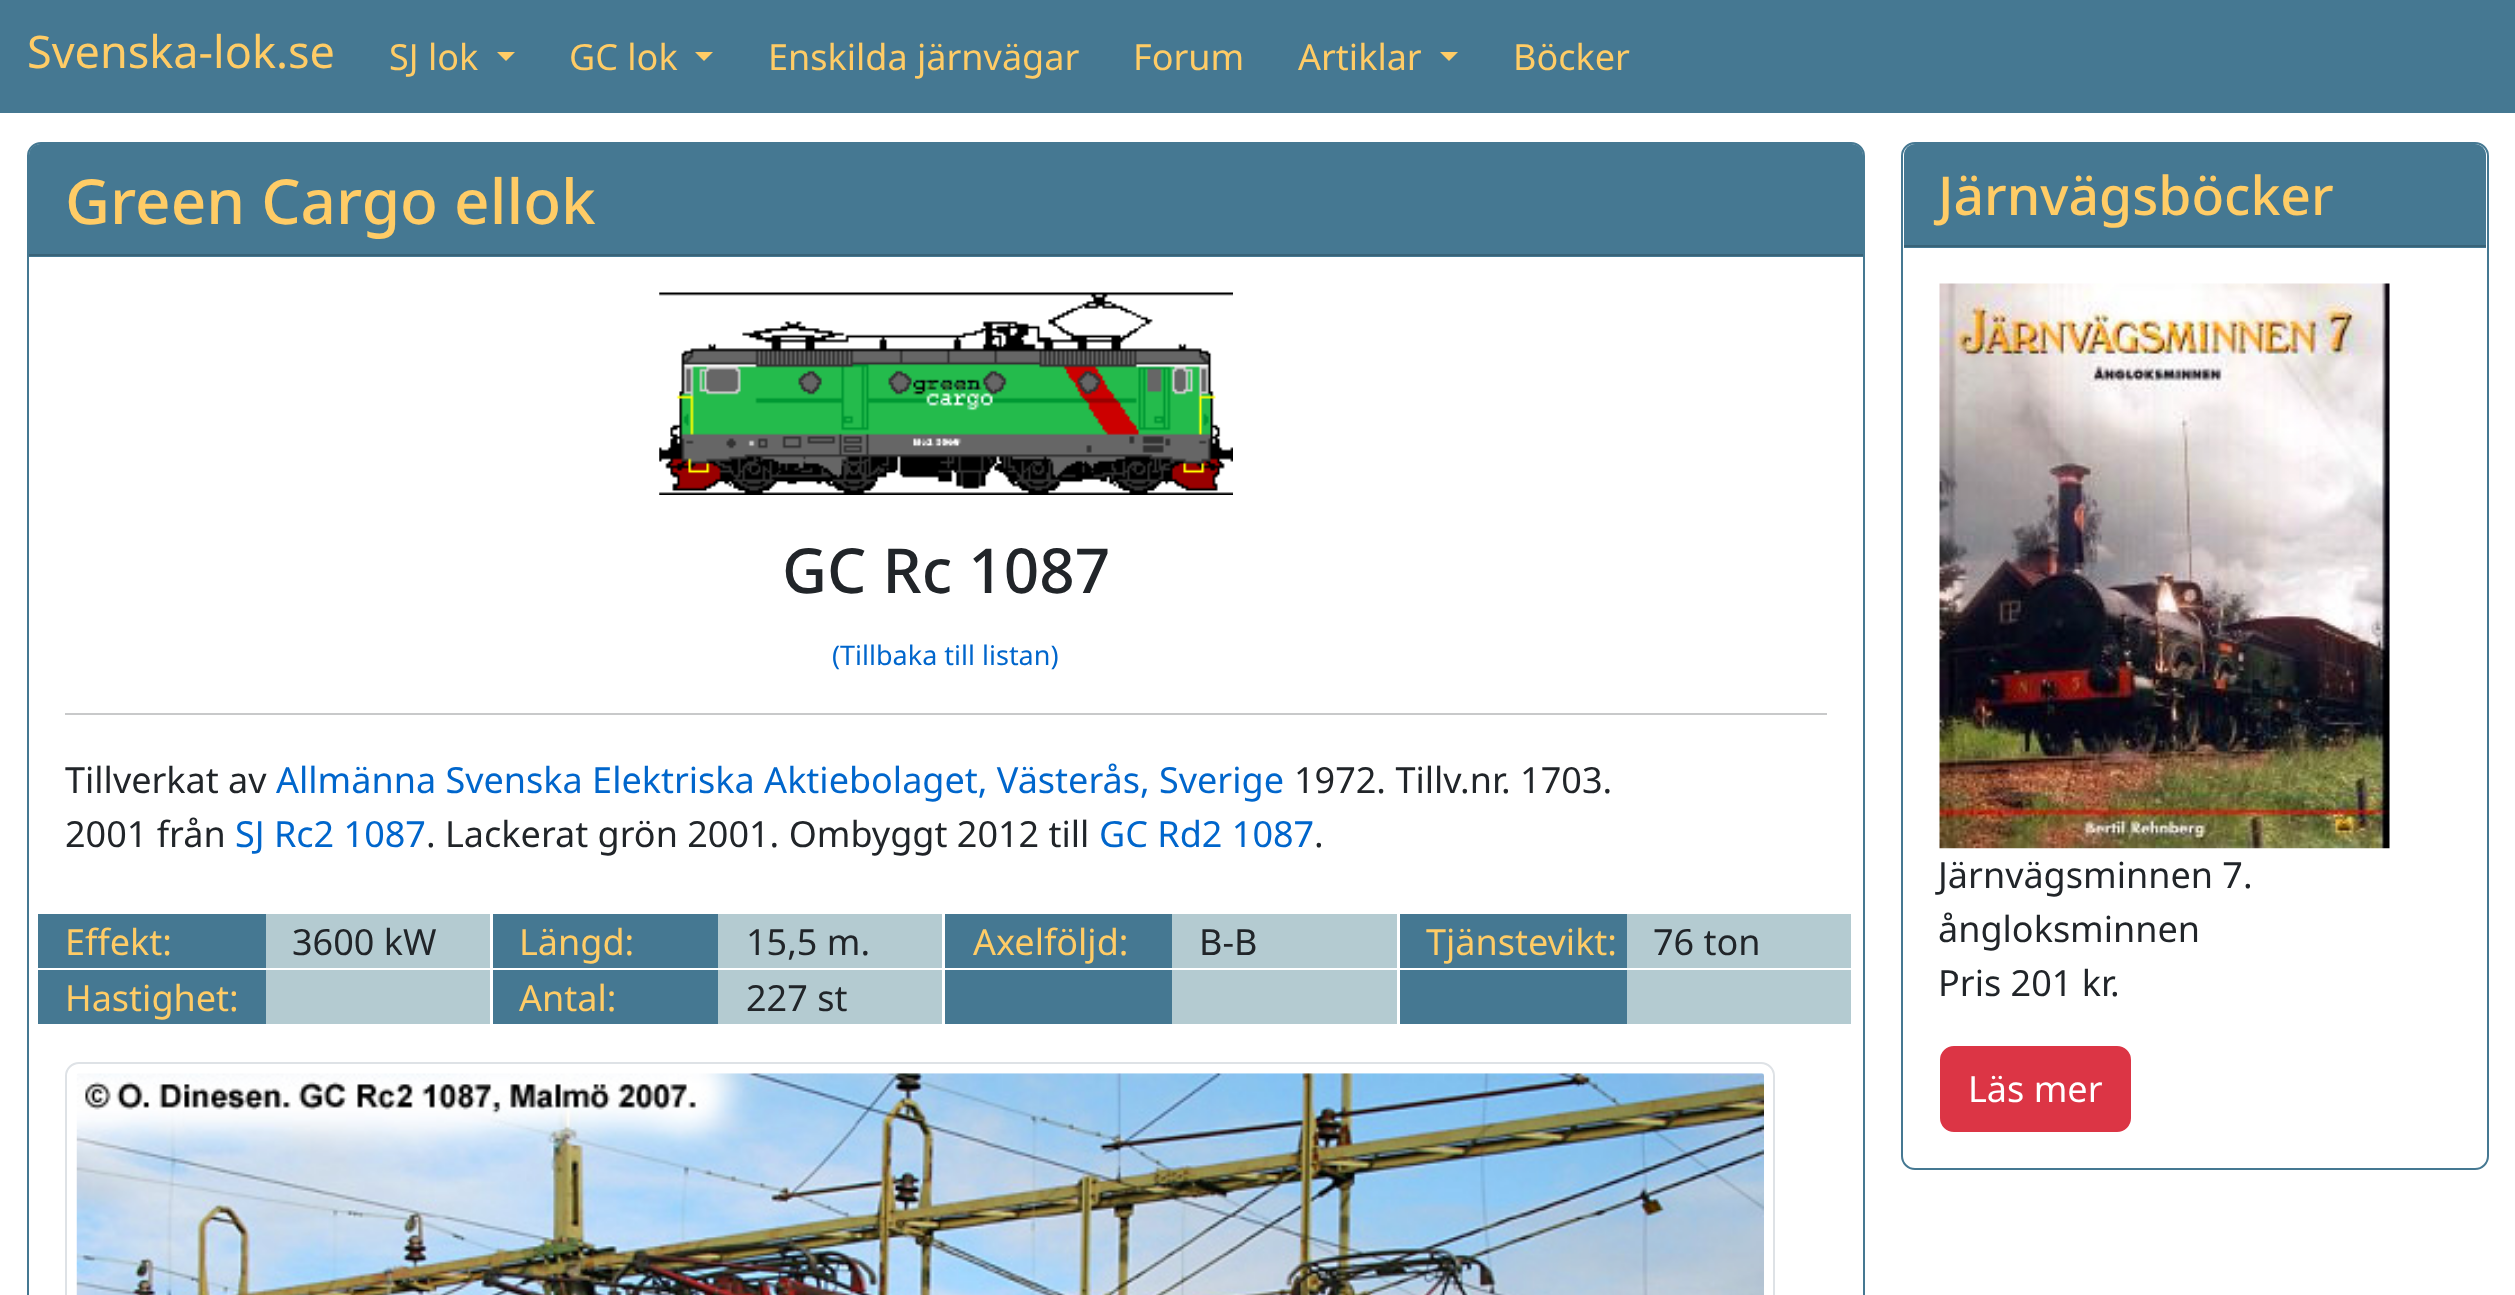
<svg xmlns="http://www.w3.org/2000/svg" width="2515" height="1295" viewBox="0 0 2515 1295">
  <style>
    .t1 { font: 45px Noto Sans; fill: #fc6; }
    .t2 { font: 36px Noto Sans; fill: #fc6; }
    .t3 { font: 500 62px Noto Sans; fill: #fc6; }
    .t4 { font: 500 62px Noto Sans; fill: #212529; }
    .t5 { font: 27px Noto Sans; fill: #06c; }
    .t6 { font: 36px Noto Sans; fill: #212529; }
    .t7 { font: 36px Noto Sans; fill: #06c; }
    .t8 { font: 500 53.5px Noto Sans; fill: #fc6; }
    .t9 { font: 36px Noto Sans; fill: #fff; }
  </style>
  <rect width="100%" height="100%" fill="#fff"/>
  <rect x="0" y="0" width="2515" height="113" fill="#457892"/>
  <text x="27" y="68" class="t1">Svenska-lok.se</text>
  <text x="389" y="70" class="t2">SJ lok</text>
  <path d="M497 52H515L506 61Z" fill="#fc6"/>
  <text x="569" y="70" class="t2">GC lok</text>
  <path d="M695 52H713L704 61Z" fill="#fc6"/>
  <text x="768" y="70" class="t2">Enskilda järnvägar</text>
  <text x="1133" y="70" class="t2">Forum</text>
  <text x="1298" y="70" class="t2">Artiklar</text>
  <path d="M1440 52H1458L1449 61Z" fill="#fc6"/>
  <text x="1513" y="70" class="t2">Böcker</text>
  <rect x="28" y="143" width="1836" height="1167" rx="13" fill="none" stroke="#457892" stroke-width="2"/>
  <path d="M40 144H1852C1858 144 1863 149 1863 155V257H29V155C29 149 34 144 40 144Z" fill="#457892"/>
  <rect x="29" y="254" width="1834" height="2" fill="#396378"/>
  <text x="65" y="224" class="t3">Green Cargo ellok</text>
  <image x="659" y="292" width="574" height="203" href="images/1.png"/>
  <text x="782" y="593" class="t4">GC Rc 1087</text>
  <text x="832" y="665" class="t5">(Tillbaka till listan)</text>
  <rect x="65" y="713" width="1762" height="2" fill="#c8c9ca"/>
  <text x="65" y="793" class="t6">Tillverkat av</text>
  <text x="276" y="793" class="t7">Allmänna Svenska Elektriska Aktiebolaget, Västerås, Sverige</text>
  <text x="1294" y="793" class="t6">1972. Tillv.nr. 1703.</text>
  <text x="65" y="847" class="t6">2001 från</text>
  <text x="235" y="847" class="t7">SJ Rc2 1087</text>
  <text x="426" y="847" class="t6">. Lackerat grön 2001. Ombyggt 2012 till</text>
  <text x="1099" y="847" class="t7">GC Rd2 1087</text>
  <text x="1314" y="847" class="t6">.</text>
  <rect x="38" y="914" width="228" height="54" fill="#457892"/>
  <text x="65" y="955" class="t2">Effekt:</text>
  <rect x="266" y="914" width="224" height="54" fill="#b4cbd1"/>
  <text x="292" y="955" class="t6">3600 kW</text>
  <rect x="493" y="914" width="225" height="54" fill="#457892"/>
  <text x="519" y="955" class="t2">Längd:</text>
  <rect x="718" y="914" width="224" height="54" fill="#b4cbd1"/>
  <text x="746" y="955" class="t6">15,5 m.</text>
  <rect x="945" y="914" width="227" height="54" fill="#457892"/>
  <text x="973" y="955" class="t2">Axelföljd:</text>
  <rect x="1172" y="914" width="225" height="54" fill="#b4cbd1"/>
  <text x="1199" y="955" class="t6">B-B</text>
  <rect x="1400" y="914" width="227" height="54" fill="#457892"/>
  <text x="1426" y="955" class="t2">Tjänstevikt:</text>
  <rect x="1627" y="914" width="224" height="54" fill="#b4cbd1"/>
  <text x="1653" y="955" class="t6">76 ton</text>
  <rect x="38" y="970" width="228" height="54" fill="#457892"/>
  <text x="65" y="1011" class="t2">Hastighet:</text>
  <rect x="266" y="970" width="224" height="54" fill="#b4cbd1"/>
  <rect x="493" y="970" width="225" height="54" fill="#457892"/>
  <text x="519" y="1011" class="t2">Antal:</text>
  <rect x="718" y="970" width="224" height="54" fill="#b4cbd1"/>
  <text x="746" y="1011" class="t6">227 st</text>
  <rect x="945" y="970" width="227" height="54" fill="#457892"/>
  <rect x="1172" y="970" width="225" height="54" fill="#b4cbd1"/>
  <rect x="1400" y="970" width="227" height="54" fill="#457892"/>
  <rect x="1627" y="970" width="224" height="54" fill="#b4cbd1"/>
  <rect x="66" y="1063" width="1708" height="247" rx="13" fill="none" stroke="#dee2e6" stroke-width="2"/>
  <image x="76" y="1073" width="1688" height="222" href="images/2.png"/>
  <rect x="1902" y="143" width="586" height="1026" rx="13" fill="none" stroke="#457892" stroke-width="2"/>
  <path d="M1915 144H2475C2481 144 2486 149 2486 155V248H1904V155C1904 149 1909 144 1915 144Z" fill="#457892"/>
  <rect x="1904" y="245" width="582" height="2" fill="#396378"/>
  <text x="1938" y="215" class="t8">Järnvägsböcker</text>
  <image x="1939" y="283" width="451" height="566" href="images/3.png"/>
  <text x="1938" y="888" class="t6">Järnvägsminnen 7.</text>
  <text x="1938" y="942" class="t6">ångloksminnen</text>
  <text x="1938" y="996" class="t6">Pris 201 kr.</text>
  <rect x="1941" y="1047" width="189" height="84" rx="13" fill="#dc3545" stroke="#dc3545" stroke-width="2"/>
  <text x="1968" y="1102" class="t9">Läs mer</text>
</svg>
